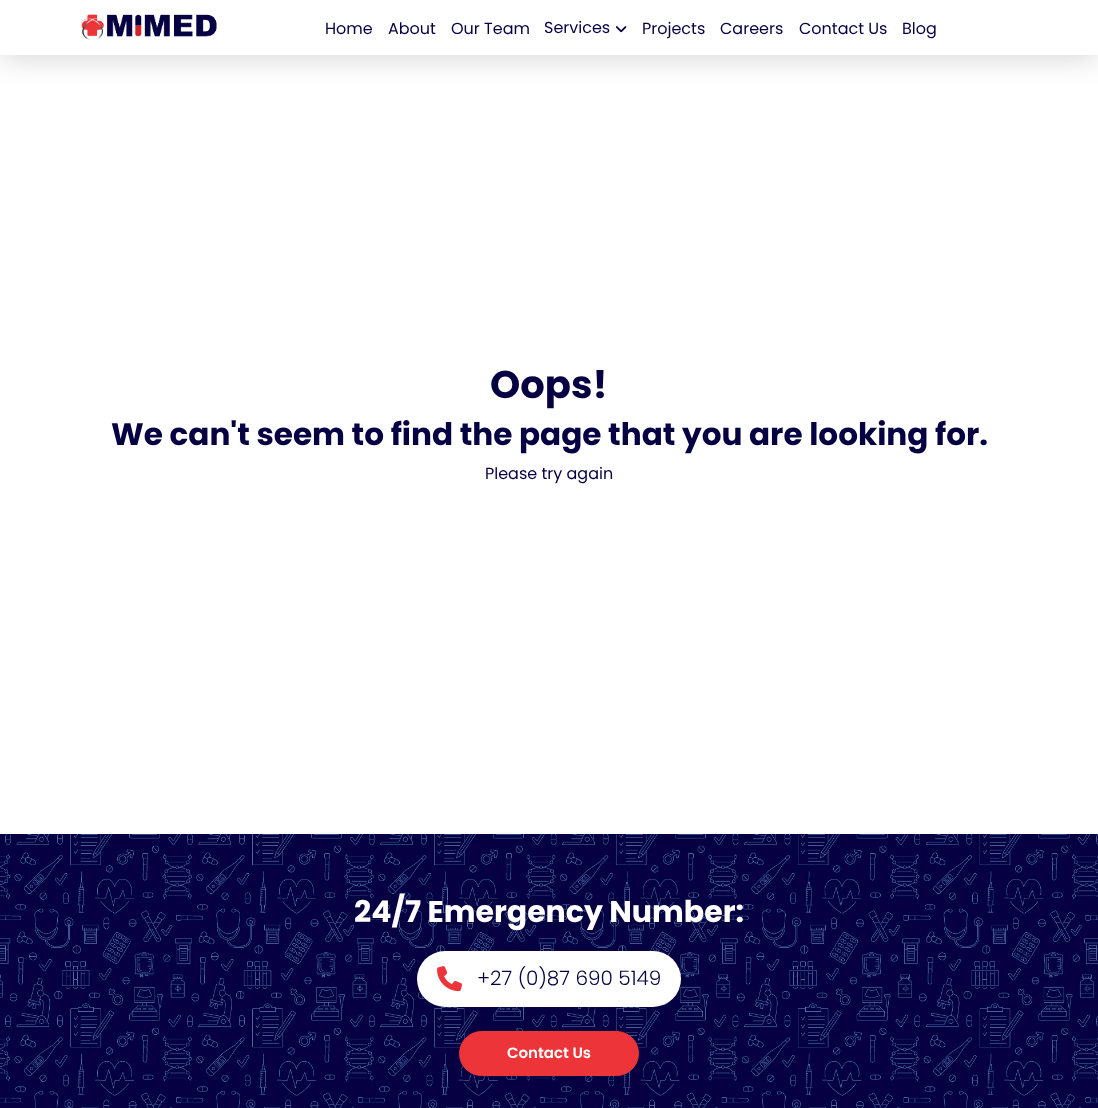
<svg xmlns="http://www.w3.org/2000/svg" width="1098" height="1108" viewBox="0 0 1098 1108">
  <style>
    .t1 { font: 16px Poppins; fill: #060043; }
    .t2 { font: bold 38.5px Poppins; fill: #060043; }
    .t3 { font: bold 31.1px Poppins; fill: #060043; }
    .t4 { font: bold 30px Poppins; fill: #fff; }
    .t5 { font: 300 20px Poppins; fill: #060043; }
    .t6 { font: 600 15px Poppins; fill: #fff; }
  </style>
  <rect width="100%" height="100%" fill="#fff"/>
  <rect x="0" y="3" width="1098" height="55" fill="#00000029" filter="blur(15px)"/>
  <rect x="0" y="0" width="1098" height="55" fill="#fff"/>
  <image x="81" y="14" width="136" height="26" href="images/1.png"/>
  <text x="325" y="34" class="t1">Home</text>
  <text x="388" y="34" class="t1">About</text>
  <text x="451" y="34" class="t1">Our Team</text>
  <text x="544" y="33" class="t1">Services</text>
  <image x="616" y="26" width="11" height="7" href="images/2.png"/>
  <text x="642" y="34" class="t1">Projects</text>
  <text x="720" y="34" class="t1">Careers</text>
  <text x="799" y="34" class="t1">Contact Us</text>
  <text x="902" y="34" class="t1">Blog</text>
  <text x="490" y="398" class="t2">Oops!</text>
  <text x="111" y="445" class="t3">We can't seem to find the page that you are looking for.</text>
  <text x="485" y="479" class="t1">Please try again</text>
  <image x="0" y="834" width="1098" height="274" href="images/3.png"/>
  <text x="354" y="922" class="t4">24/7 Emergency Number:</text>
  <rect x="417" y="951" width="264" height="56" rx="28" fill="#fff"/>
  <image x="437" y="966" width="25" height="26" href="images/4.png"/>
  <text x="477" y="985" class="t5">+27 (0)87 690 5149</text>
  <rect x="459.5" y="1031.5" width="179" height="44" rx="22" fill="#ed3438" stroke="#ed3438"/>
  <text x="507" y="1058" class="t6">Contact Us</text>
</svg>
